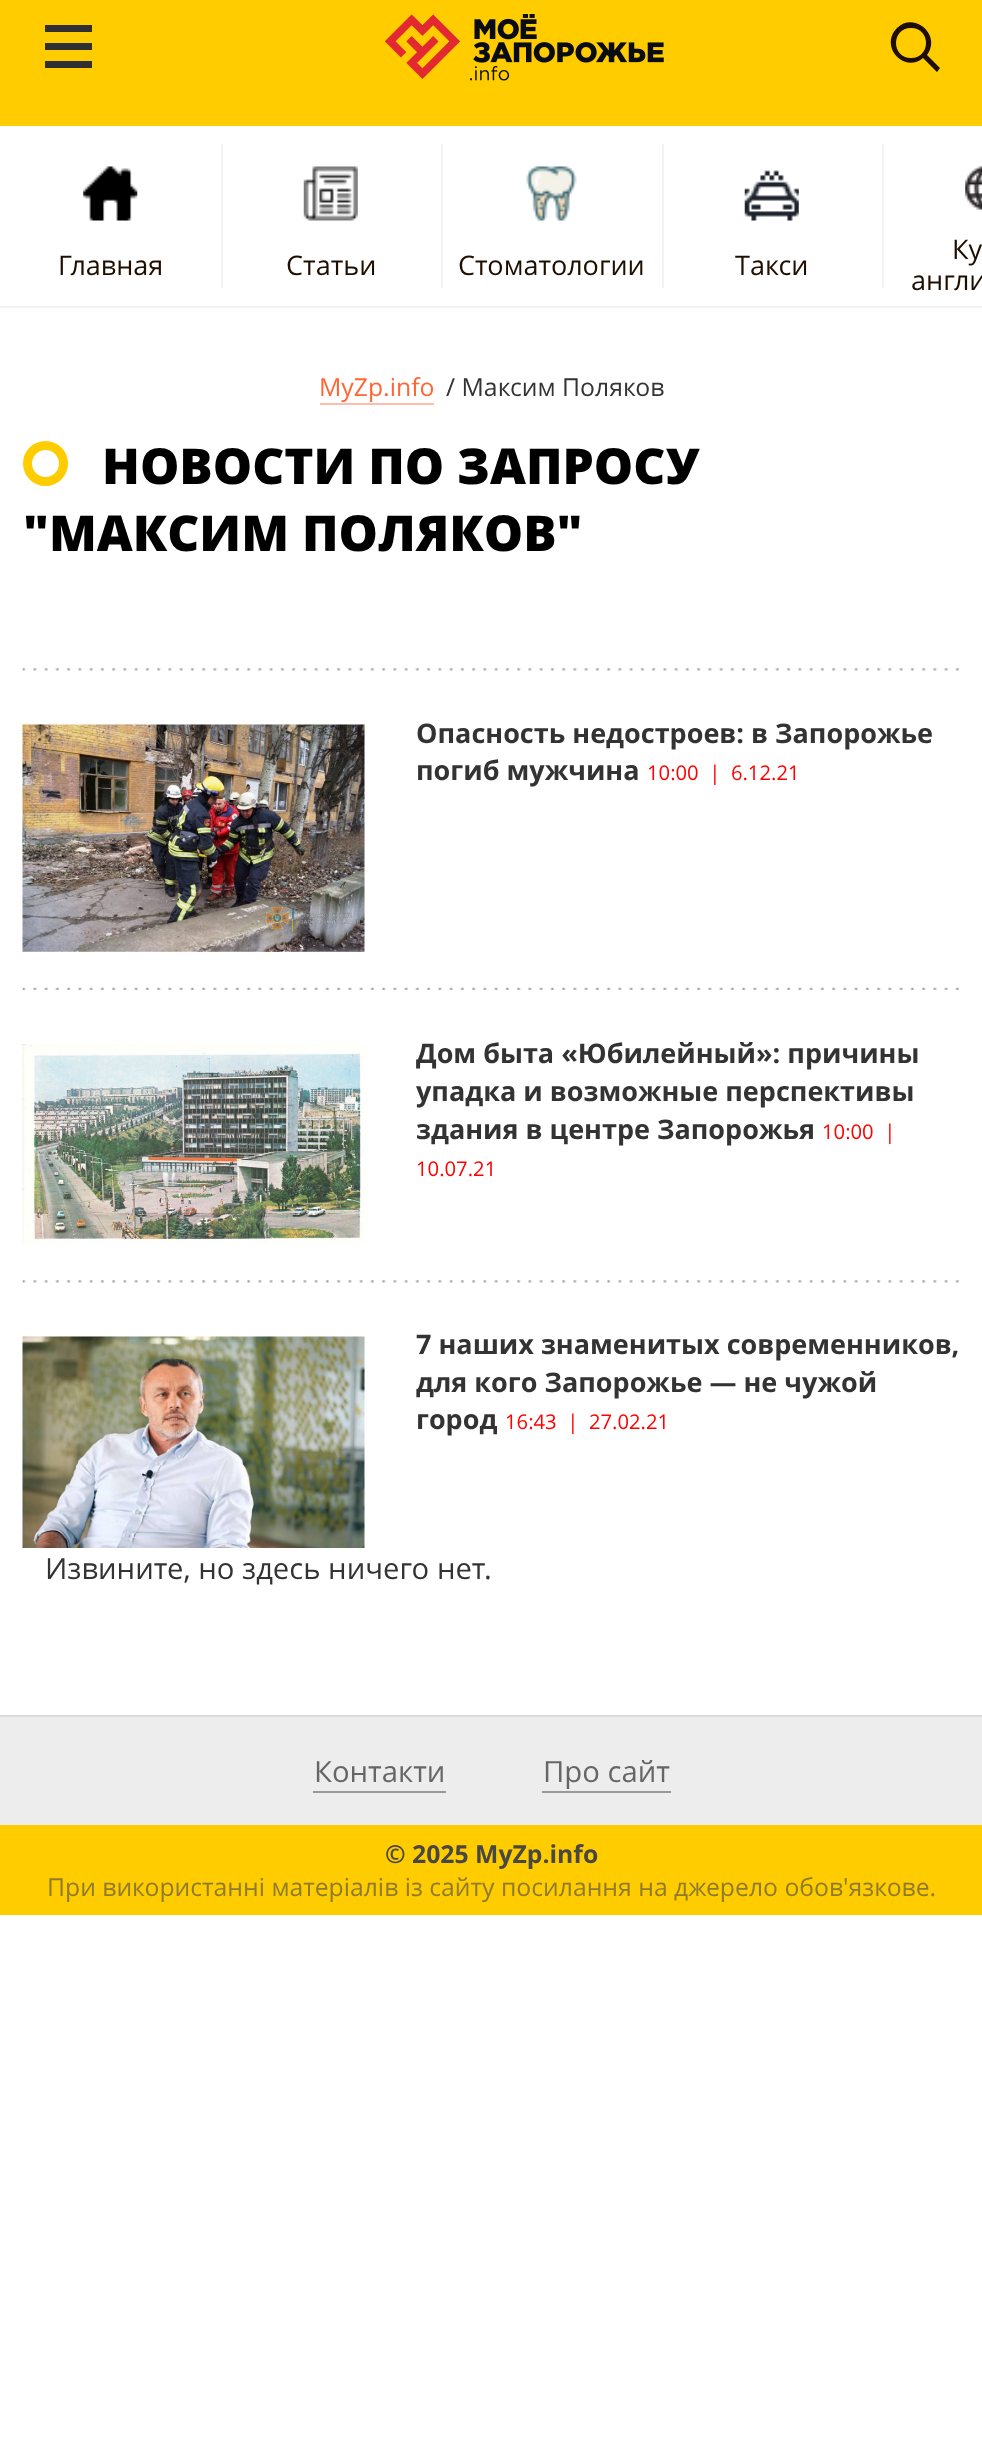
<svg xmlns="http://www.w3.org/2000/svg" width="982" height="2457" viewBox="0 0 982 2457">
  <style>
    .t1 { font: 27px Open Sans; fill: #1e0e00; }
    .t2 { font: 24.75px Open Sans; fill: #f63; }
    .t3 { font: 24.75px Open Sans; fill: #333; }
    .t4 { font: 800 49.5px Open Sans; fill: #000; }
    .t5 { font: bold 27px Open Sans; fill: #333; }
    .t6 { font: 20.25px Open Sans; fill: #ff0101; }
    .t7 { font: 29.25px Open Sans; fill: #333; }
    .t8 { font: 29.25px Open Sans; fill: #666; }
    .t9 { font: bold 24.75px Open Sans; fill: #484743; }
    .t10 { font: 24.75px Open Sans; fill: #8e7b2f; }
  </style>
  <rect width="100%" height="100%" fill="#fff"/>
  <rect x="0" y="0" width="982" height="126" fill="#fc0"/>
  <rect x="45" y="43" width="47" height="7" fill="#303030"/>
  <rect x="45" y="25" width="47" height="7" fill="#303030"/>
  <rect x="45" y="61" width="47" height="7" fill="#303030"/>
  <image x="385" y="14" width="279" height="67" href="images/1.png"/>
  <path d="M911 58C891 58 891 28 911 28C931 28 931 58 911 58ZM940 68L927 55C942 35 914 11 897 28C879 46 904 74 923 58L937 72Z" fill="#1e0e00" fill-rule="evenodd"/>
  <rect x="0" y="306" width="982" height="2" fill="#f2f2f2"/>
  <image x="83" y="166" width="55" height="55" href="images/2.png"/>
  <text x="58" y="275" class="t1">Главная</text>
  <rect x="221" y="144" width="2" height="144" fill="#f2f2f2"/>
  <image x="303" y="166" width="55" height="55" href="images/3.png"/>
  <text x="286" y="275" class="t1">Статьи</text>
  <rect x="441" y="144" width="2" height="144" fill="#f2f2f2"/>
  <image x="526" y="166" width="51" height="55" href="images/4.png"/>
  <text x="458" y="275" class="t1">Стоматологии</text>
  <rect x="662" y="144" width="2" height="144" fill="#f2f2f2"/>
  <image x="744" y="170" width="55" height="51" href="images/5.png"/>
  <text x="735" y="275" class="t1">Такси</text>
  <rect x="882" y="144" width="2" height="144" fill="#f2f2f2"/>
  <image x="965" y="166" width="17" height="46" href="images/6.png"/>
  <text x="952" y="259" class="t1">Ку</text>
  <text x="911" y="290" class="t1">англи</text>
  <text x="319" y="396" class="t2">MyZp.info</text>
  <rect x="320" y="403" width="114" height="2" fill="#ffbcad"/>
  <text x="446" y="396" class="t3">/ Максим Поляков</text>
  <circle cx="45.5" cy="463.5" r="18" fill="none" stroke="#fc0" stroke-width="9"/>
  <text x="102" y="484" class="t4">НОВОСТИ ПО ЗАПРОСУ</text>
  <text x="23" y="551" class="t4">"МАКСИМ ПОЛЯКОВ"</text>
  <image x="22" y="668" width="938" height="3" href="images/7.png"/>
  <image x="22" y="724" width="343" height="228" href="images/8.png"/>
  <text x="416" y="743" class="t5">Опасность недостроев: в Запорожье</text>
  <text x="416" y="780" class="t5">погиб мужчина</text>
  <text x="647" y="780" class="t6" xml:space="preserve">10:00  |  6.12.21</text>
  <image x="22" y="987" width="938" height="3" href="images/9.png"/>
  <image x="22" y="1044" width="343" height="200" href="images/10.png"/>
  <text x="416" y="1063" class="t5">Дом быта «Юбилейный»: причины</text>
  <text x="416" y="1101" class="t5">упадка и возможные перспективы</text>
  <text x="416" y="1139" class="t5">здания в центре Запорожья</text>
  <text x="822" y="1139" class="t6" xml:space="preserve">10:00  |</text>
  <text x="416" y="1176" class="t6">10.07.21</text>
  <image x="22" y="1280" width="938" height="3" href="images/7.png"/>
  <image x="22" y="1336" width="343" height="212" href="images/11.png"/>
  <text x="416" y="1354" class="t5">7 наших знаменитых современников,</text>
  <text x="416" y="1392" class="t5">для кого Запорожье — не чужой</text>
  <text x="416" y="1429" class="t5">город</text>
  <text x="505" y="1429" class="t6" xml:space="preserve">16:43  |  27.02.21</text>
  <text x="45" y="1579" class="t7">Извините, но здесь ничего нет.</text>
  <rect x="0" y="1717" width="982" height="108" fill="#ededed"/>
  <rect x="0" y="1715" width="982" height="2" fill="#dcdcdc"/>
  <text x="314" y="1782" class="t8">Контакти</text>
  <rect x="313" y="1791" width="133" height="2" fill="#989898"/>
  <text x="543" y="1782" class="t8">Про сайт</text>
  <rect x="542" y="1791" width="129" height="2" fill="#989898"/>
  <rect x="0" y="1825" width="982" height="90" fill="#fc0"/>
  <text x="385" y="1863" class="t9">© 2025 MyZp.info</text>
  <text x="47" y="1896" class="t10">При використанні матеріалів із сайту посилання на джерело обов'язкове.</text>
</svg>
